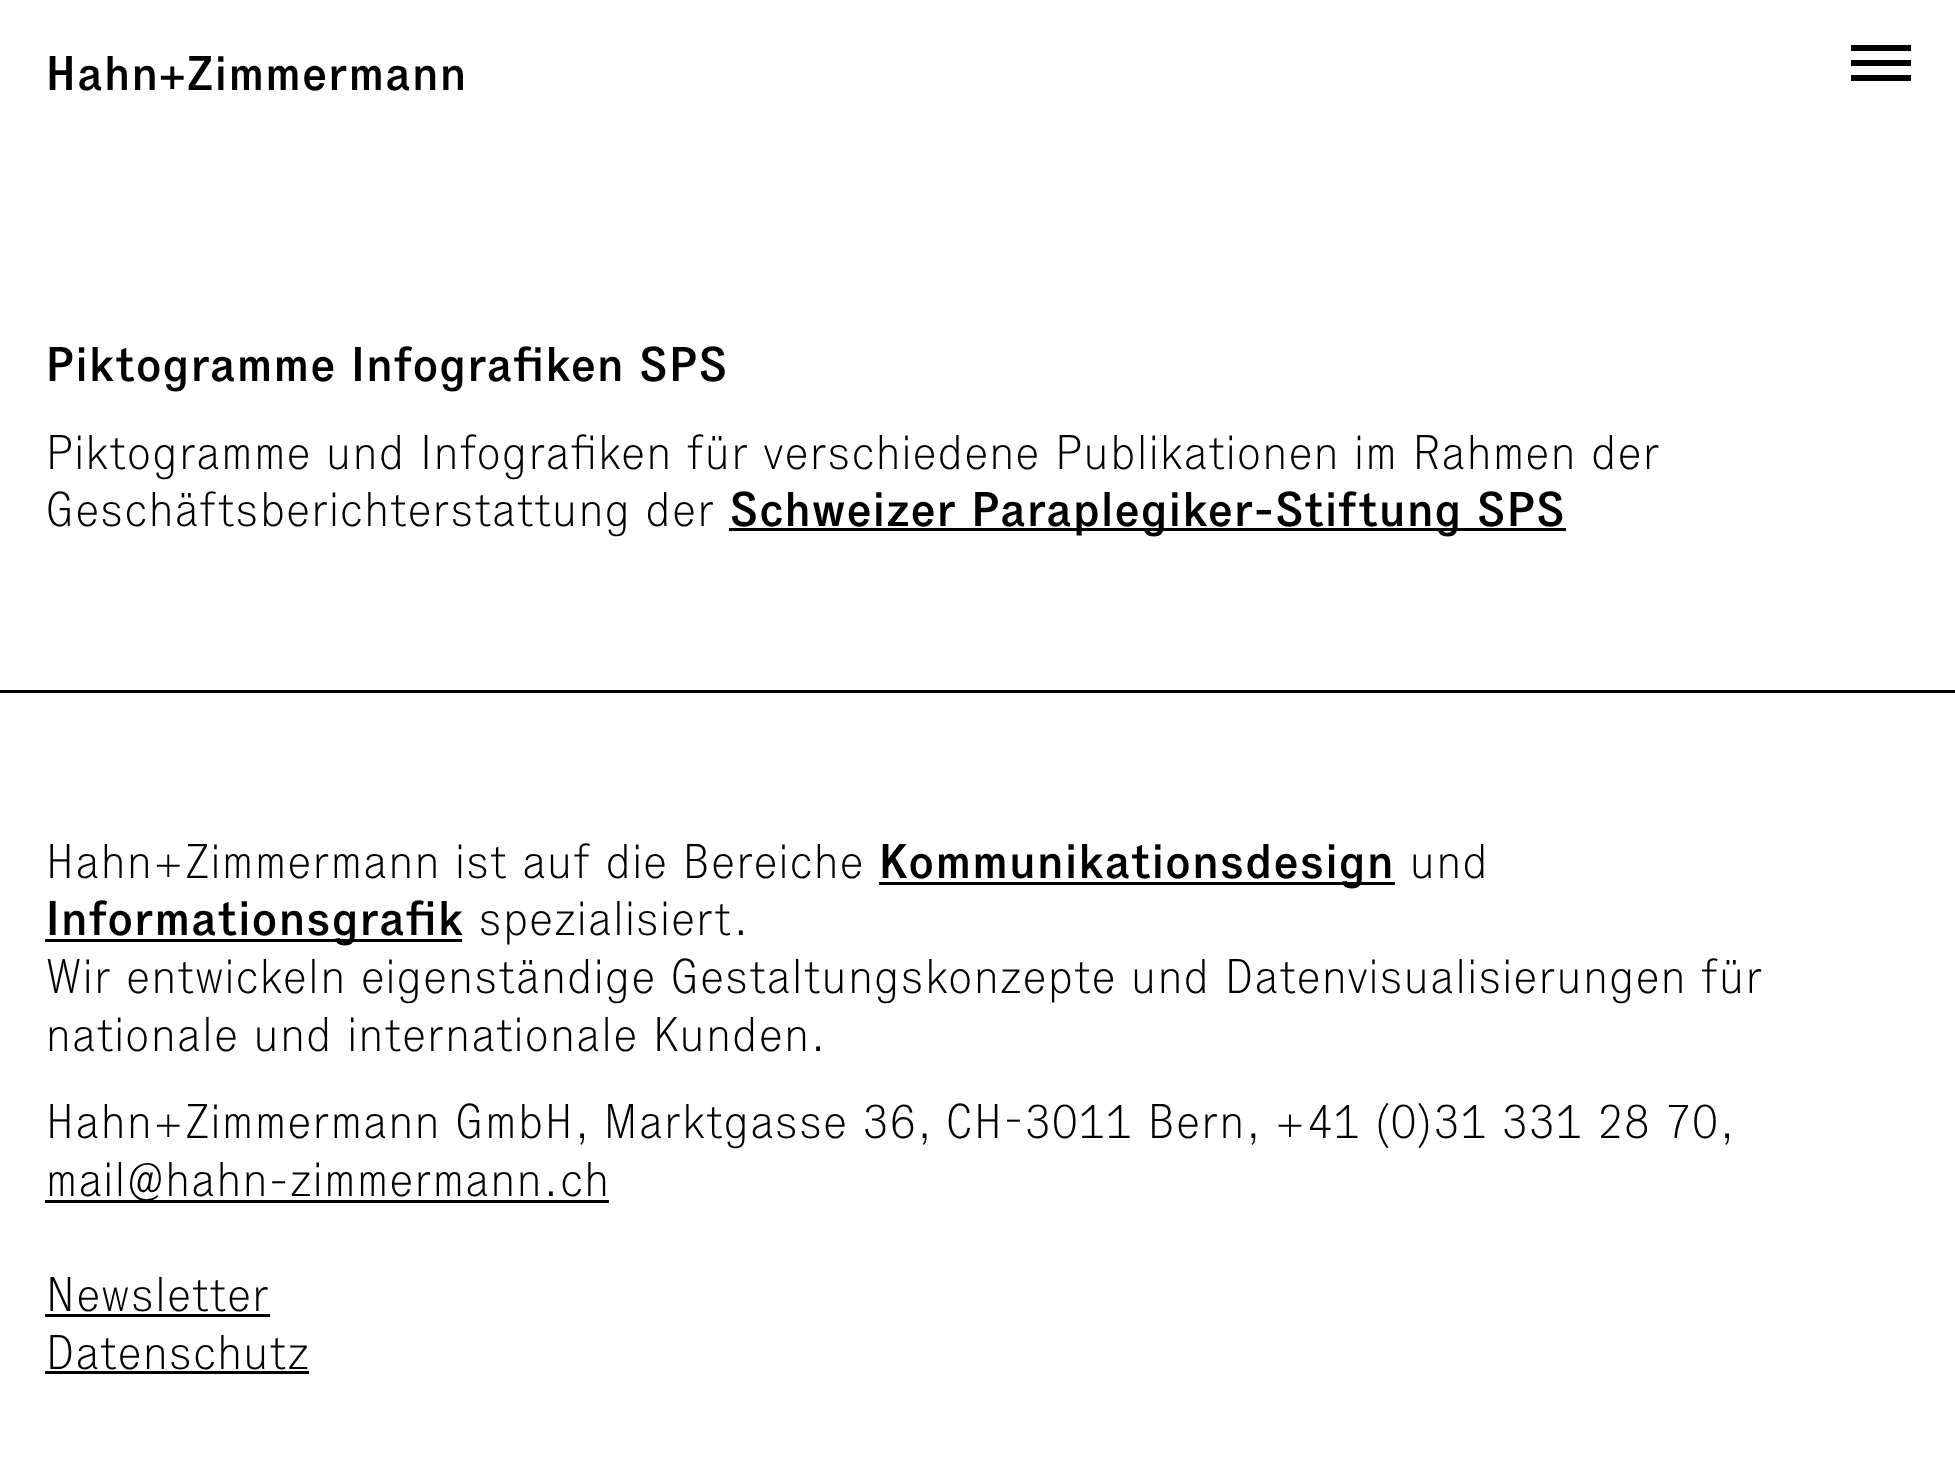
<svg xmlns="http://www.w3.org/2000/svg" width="1955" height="1468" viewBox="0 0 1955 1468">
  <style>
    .t1 { font: 500 48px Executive; fill: #000; }
    .t2 { font: 200 48px Executive; fill: #000; }
  </style>
  <rect width="100%" height="100%" fill="#fff"/>
  <text x="45" y="90" class="t1">Hahn+Zimmermann</text>
  <rect x="1851" y="45" width="60" height="6" fill="#000"/>
  <rect x="1851" y="60" width="60" height="6" fill="#000"/>
  <rect x="1851" y="75" width="60" height="6" fill="#000"/>
  <text x="45" y="381" class="t1">Piktogramme Infografiken SPS</text>
  <text x="45" y="469" class="t2">Piktogramme und Infografiken für verschiedene Publikationen im Rahmen der</text>
  <text x="45" y="526" class="t2">Geschäftsberichterstattung der</text>
  <rect x="729" y="528" width="837" height="3" fill="#000"/>
  <text x="729" y="526" class="t1">Schweizer Paraplegiker-Stiftung SPS</text>
  <rect x="0" y="690" width="1955" height="3" fill="#000"/>
  <text x="45" y="878" class="t2">Hahn+Zimmermann ist auf die Bereiche</text>
  <rect x="879" y="882" width="516" height="3" fill="#000"/>
  <text x="878" y="878" class="t1">Kommunikationsdesign</text>
  <text x="1409" y="878" class="t2">und</text>
  <rect x="45" y="939" width="417" height="3" fill="#000"/>
  <text x="45" y="935" class="t1">Informationsgrafik</text>
  <text x="478" y="935" class="t2">spezialisiert.</text>
  <text x="45" y="993" class="t2">Wir entwickeln eigenständige Gestaltungskonzepte und Datenvisualisierungen für</text>
  <text x="45" y="1051" class="t2">nationale und internationale Kunden.</text>
  <text x="45" y="1138" class="t2">Hahn+Zimmermann GmbH, Marktgasse 36, CH-3011 Bern,</text>
  <text x="1274" y="1138" word-spacing="-0.5" class="t2">+41 (0)31 331 28 70,</text>
  <rect x="45" y="1200" width="564" height="3" fill="#000"/>
  <text x="45" y="1196" class="t2">mail@hahn-zimmermann.ch</text>
  <text x="45" y="1311" class="t2">Newsletter</text>
  <rect x="45" y="1314" width="225" height="3" fill="#000"/>
  <text x="45" y="1369" class="t2">Datenschutz</text>
  <rect x="45" y="1371" width="264" height="3" fill="#000"/>
</svg>
